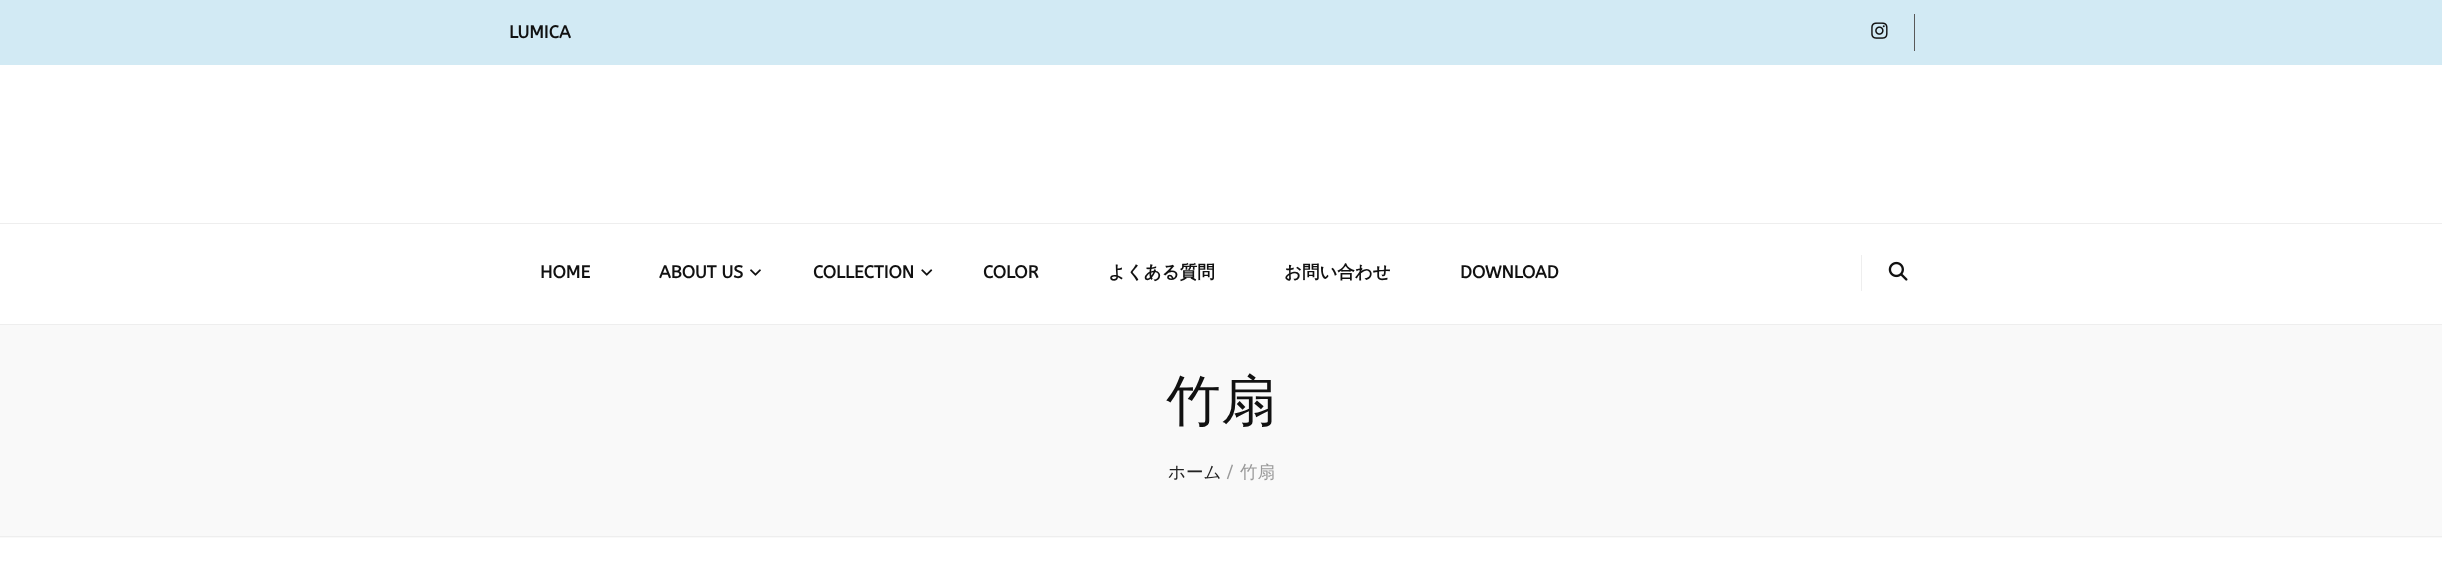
<svg xmlns="http://www.w3.org/2000/svg" width="2442" height="571" viewBox="0 0 2442 571">
  <style>
    .t1 { font: bold 17.5px ABeeZee; fill: #111; }
    .t2 { font: bold 17.5px WenQuanYi Zen Hei; fill: #111; }
    .t3 { font: 500 55px WenQuanYi Zen Hei; fill: #111; }
    .t4 { font: 500 17.5px WenQuanYi Zen Hei; fill: #222; }
    .t5 { font: 17.5px ABeeZee; fill: #999; }
    .t6 { font: 500 17.5px WenQuanYi Zen Hei; fill: #999; }
  </style>
  <rect width="100%" height="100%" fill="#fff"/>
  <rect x="0" y="0" width="2442" height="65" fill="#d2eaf4"/>
  <text x="509" y="38" class="t1">LUMICA</text>
  <rect x="1914" y="14" width="1" height="37" fill="#595959"/>
  <image x="1871" y="22" width="17" height="17" href="images/1.png"/>
  <rect x="0" y="223" width="2442" height="1" fill="#eee"/>
  <rect x="0" y="324" width="2442" height="1" fill="#eee"/>
  <text x="540" y="278" class="t1">HOME</text>
  <text x="659" y="278" class="t1">ABOUT US</text>
  <image x="750" y="269" width="11" height="7" href="images/2.png"/>
  <text x="813" y="278" class="t1">COLLECTION</text>
  <image x="921" y="269" width="12" height="7" href="images/3.png"/>
  <text x="983" y="278" class="t1">COLOR</text>
  <text x="1108" y="278" class="t2">よくある質問</text>
  <text x="1284" y="278" class="t2">お問い合わせ</text>
  <text x="1460" y="278" class="t1">DOWNLOAD</text>
  <rect x="1861" y="255" width="1" height="36" fill="#eee"/>
  <image x="1888" y="261" width="20" height="20" href="images/4.png"/>
  <rect x="0" y="325" width="2442" height="213" fill="#f9f9f9"/>
  <rect x="0" y="536" width="2442" height="1" fill="#eee"/>
  <text x="1166" y="420" class="t3">竹扇</text>
  <text x="1168" y="478" class="t4">ホーム</text>
  <text x="1226" y="478" class="t5">/</text>
  <text x="1240" y="478" class="t6">竹扇</text>
</svg>
